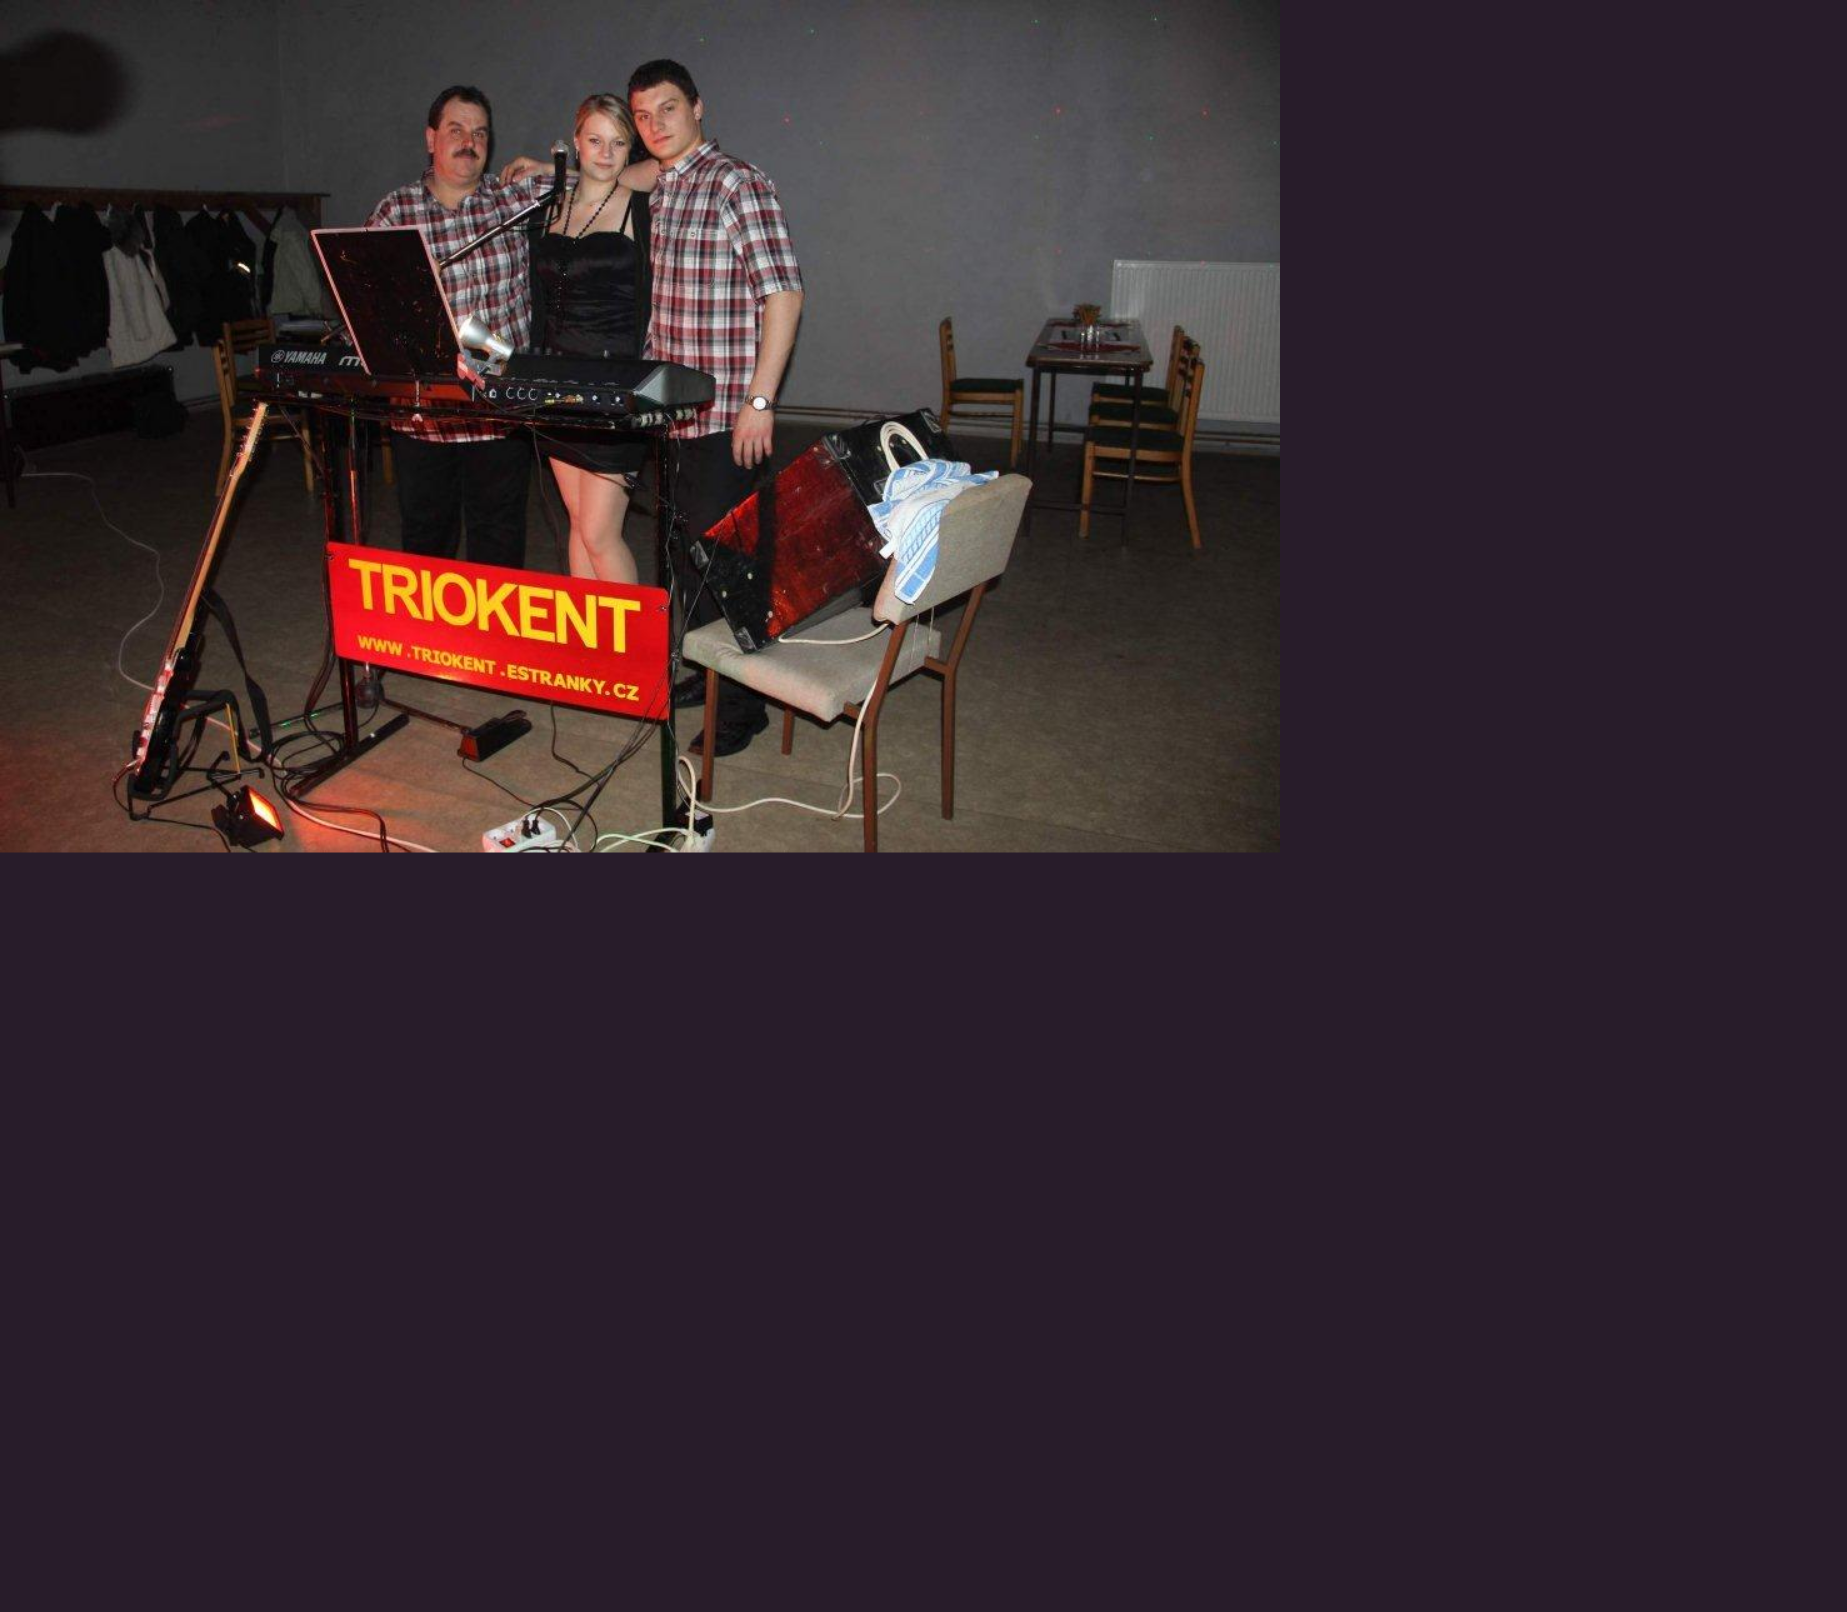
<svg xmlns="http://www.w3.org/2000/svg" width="1847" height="1612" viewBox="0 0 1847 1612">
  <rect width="100%" height="100%" fill="#281c2a"/>
  <image x="0" y="0" width="1280" height="853" href="images/1.png"/>
</svg>
